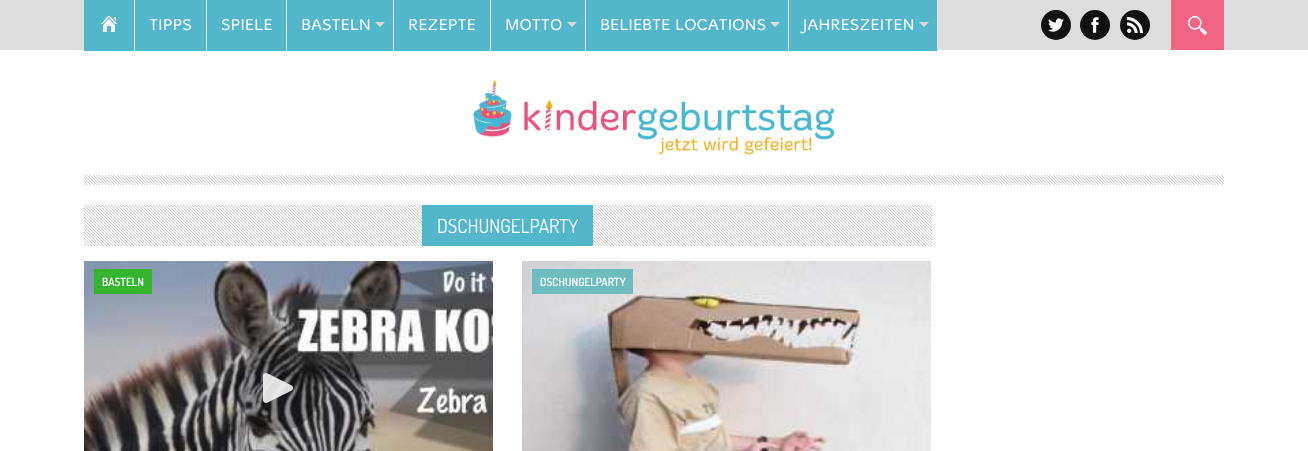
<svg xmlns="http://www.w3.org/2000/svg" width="1308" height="451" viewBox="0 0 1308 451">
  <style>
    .t1 { font: 300 16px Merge; fill: #fff; }
    .t2 { font: 19.25px Dosis; fill: #fff; }
    .t3 { font: 600 11.25px Dosis; fill: #fff; }
  </style>
  <rect width="100%" height="100%" fill="#fff"/>
  <rect x="0" y="0" width="1308" height="50" fill="#ddd"/>
  <rect x="84" y="0" width="50" height="51" fill="#53b7cc"/>
  <image x="101" y="16" width="16" height="16" href="images/1.png"/>
  <rect x="134" y="50" width="1" height="1" fill="#ddd"/>
  <rect x="135" y="0" width="71" height="51" fill="#53b7cc"/>
  <rect x="206" y="50" width="1" height="1" fill="#ddd"/>
  <text x="149" y="30" class="t1">TIPPS</text>
  <rect x="207" y="0" width="79" height="51" fill="#53b7cc"/>
  <rect x="286" y="50" width="1" height="1" fill="#ddd"/>
  <text x="221" y="30" class="t1">SPIELE</text>
  <rect x="287" y="0" width="106" height="51" fill="#53b7cc"/>
  <rect x="393" y="50" width="1" height="1" fill="#ddd"/>
  <text x="301" y="30" class="t1">BASTELN</text>
  <path d="M375 22H385L380 27Z" fill="#ddd"/>
  <rect x="394" y="0" width="96" height="51" fill="#53b7cc"/>
  <rect x="490" y="50" width="1" height="1" fill="#ddd"/>
  <text x="408" y="30" class="t1">REZEPTE</text>
  <rect x="491" y="0" width="94" height="51" fill="#53b7cc"/>
  <rect x="585" y="50" width="1" height="1" fill="#ddd"/>
  <text x="505" y="30" class="t1">MOTTO</text>
  <path d="M567 22H577L572 27Z" fill="#ddd"/>
  <rect x="586" y="0" width="202" height="51" fill="#53b7cc"/>
  <rect x="788" y="50" width="1" height="1" fill="#ddd"/>
  <text x="600" y="30" class="t1">BELIEBTE LOCATIONS</text>
  <path d="M770 22H780L775 27Z" fill="#ddd"/>
  <rect x="789" y="0" width="148" height="51" fill="#53b7cc"/>
  <rect x="937" y="50" width="1" height="1" fill="#ddd"/>
  <text x="803" y="30" class="t1">JAHRESZEITEN</text>
  <path d="M919 22H929L924 27Z" fill="#ddd"/>
  <circle cx="1056" cy="25" r="15" fill="#111"/>
  <image x="1048" y="18" width="16" height="14" href="images/2.png"/>
  <circle cx="1095" cy="25" r="15" fill="#111"/>
  <image x="1091" y="17" width="8" height="16" href="images/3.png"/>
  <circle cx="1135" cy="25" r="15" fill="#111"/>
  <image x="1127" y="17" width="16" height="16" href="images/4.png"/>
  <rect x="1171" y="0" width="53" height="50" fill="#ef6383"/>
  <image x="1188" y="16" width="19" height="19" href="images/5.png"/>
  <image x="473" y="80" width="362" height="75" href="images/6.png"/>
  <image x="84" y="175" width="1140" height="10" href="images/7.png"/>
  <image x="84" y="205" width="848" height="41" href="images/8.png"/>
  <rect x="422" y="205" width="171" height="41" fill="#53b7cc"/>
  <text x="437" y="233" class="t2">DSCHUNGELPARTY</text>
  <rect x="84" y="262" width="409" height="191" fill="#7272724d" filter="blur(0.5px)"/>
  <image x="84" y="261" width="409" height="190" href="images/9.png"/>
  <rect x="94" y="269" width="58" height="25" fill="#34b52d"/>
  <text x="102" y="286" class="t3">BASTELN</text>
  <circle cx="278" cy="388" r="43" fill="#00000045"/>
  <image x="263" y="373" width="30" height="30" href="images/10.png"/>
  <rect x="522" y="262" width="409" height="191" fill="#7272724d" filter="blur(0.5px)"/>
  <image x="522" y="261" width="409" height="190" href="images/11.png"/>
  <rect x="532" y="269" width="101" height="25" fill="#6dbdc0"/>
  <text x="540" y="286" class="t3">DSCHUNGELPARTY</text>
</svg>
